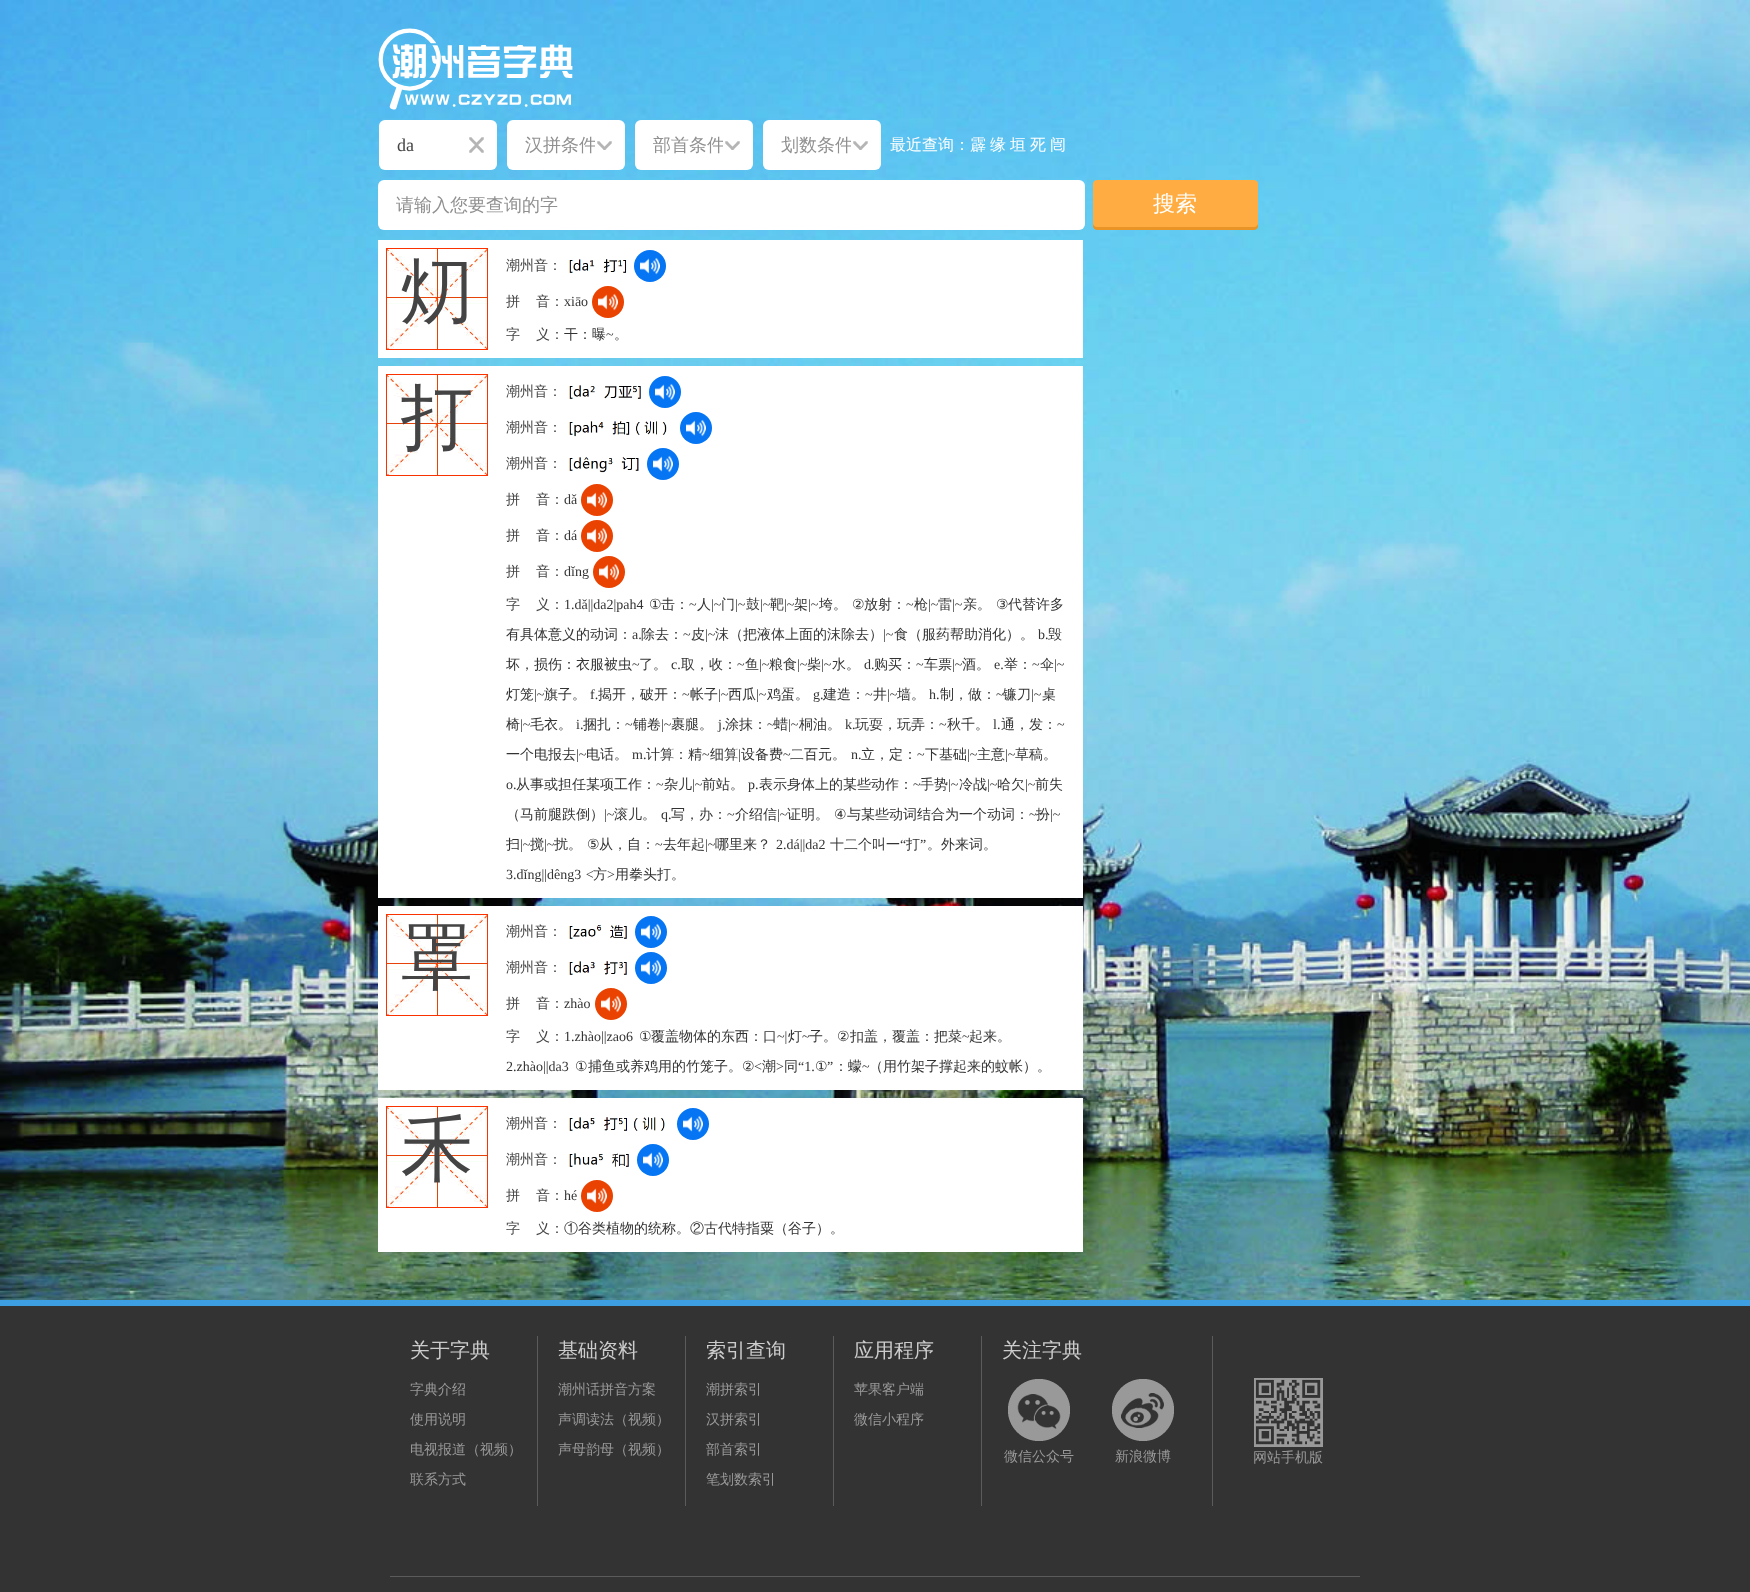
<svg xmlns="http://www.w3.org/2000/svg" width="1750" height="1592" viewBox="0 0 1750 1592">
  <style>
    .t1 { font: 18px Liberation Serif; fill: #444; }
    .t2 { font: 500 18px WenQuanYi Zen Hei; fill: #909090; }
    .t3 { font: 500 16px WenQuanYi Zen Hei; fill: #fff; }
    .t4 { font: 500 22px WenQuanYi Zen Hei; fill: #fff; }
    .t5 { font: 500 72px WenQuanYi Zen Hei; fill: #444; }
    .t6 { font: 500 14px WenQuanYi Zen Hei; fill: #444; }
    .t7 { font: 14px Liberation Serif; fill: #333; }
    .t8 { font: 500 14px WenQuanYi Zen Hei; fill: #333; }
    .t9 { font: 14px DejaVu Sans; fill: #333; }
    .t10 { font: 500 20px WenQuanYi Zen Hei; fill: #ccc; }
    .t11 { font: 500 14px WenQuanYi Zen Hei; fill: #999; }
  </style>
  <defs>
    <clipPath id="clip1"><rect x="525" y="133" width="70" height="24"/></clipPath>
    <clipPath id="clip2"><rect x="653" y="133" width="70" height="24"/></clipPath>
    <clipPath id="clip3"><rect x="781" y="133" width="70" height="24"/></clipPath>
  </defs>
  <rect width="100%" height="100%" fill="#fff"/>
  <image x="0" y="0" width="1750" height="1300" href="images/1.png"/>
  <image x="378" y="28" width="195" height="82" href="images/2.png"/>
  <rect x="379" y="120" width="118" height="50" rx="6" fill="#fff"/>
  <image x="469" y="137" width="15" height="16" href="images/3.png"/>
  <text x="397" y="151" class="t1">da</text>
  <rect x="507" y="120" width="118" height="50" rx="6" fill="#fff"/>
  <image x="597" y="141" width="15" height="9" href="images/4.png"/>
  <g clip-path="url(#clip1)">
    <text x="525" y="151" class="t2">汉拼条件</text>
  </g>
  <rect x="635" y="120" width="118" height="50" rx="6" fill="#fff"/>
  <image x="725" y="141" width="15" height="9" href="images/4.png"/>
  <g clip-path="url(#clip2)">
    <text x="653" y="151" class="t2">部首条件</text>
  </g>
  <rect x="763" y="120" width="118" height="50" rx="6" fill="#fff"/>
  <image x="853" y="141" width="15" height="9" href="images/4.png"/>
  <g clip-path="url(#clip3)">
    <text x="781" y="151" class="t2">划数条件</text>
  </g>
  <text x="890" y="150" class="t3">最近查询：霹</text>
  <text x="990" y="150" class="t3">缘</text>
  <text x="1010" y="150" class="t3">垣</text>
  <text x="1030" y="150" class="t3">死</text>
  <text x="1050" y="150" class="t3">闿</text>
  <rect x="378" y="180" width="707" height="50" rx="6" fill="#fff"/>
  <text x="396" y="211" class="t2">请输入您要查询的字</text>
  <image x="1093" y="180" width="165" height="50" href="images/5.png"/>
  <text x="1153" y="211" class="t4">搜索</text>
  <rect x="378" y="240" width="705" height="118" fill="#fff"/>
  <image x="387" y="249" width="100" height="100" href="images/6.png"/>
  <rect x="386.5" y="248.5" width="101" height="101" fill="none" stroke="#f93200"/>
  <text x="401" y="316" class="t5">灱</text>
  <text x="506" y="270" class="t6">潮州音：</text>
  <image x="569" y="259" width="58" height="14" href="images/7.png"/>
  <circle cx="650" cy="266" r="16" fill="#0575f4"/>
  <image x="640" y="257" width="20" height="18" href="images/8.png"/>
  <text x="506" y="306" class="t6">拼</text>
  <text x="536" y="306" class="t6">音：</text>
  <text x="564" y="306" class="t7">xiāo</text>
  <circle cx="608" cy="302" r="16" fill="#ea4200"/>
  <image x="598" y="293" width="20" height="18" href="images/9.png"/>
  <text x="506" y="339" class="t6">字</text>
  <text x="536" y="339" class="t6">义：</text>
  <text x="564" y="339" class="t8">干：曝</text>
  <text x="606" y="339" class="t7">~</text>
  <text x="614" y="339" class="t8">。</text>
  <rect x="378" y="366" width="705" height="532" fill="#fff"/>
  <image x="387" y="375" width="100" height="100" href="images/6.png"/>
  <rect x="386.5" y="374.5" width="101" height="101" fill="none" stroke="#f93200"/>
  <text x="401" y="442" class="t5">打</text>
  <text x="506" y="396" class="t6">潮州音：</text>
  <image x="569" y="385" width="72" height="14" href="images/10.png"/>
  <circle cx="665" cy="392" r="16" fill="#0575f4"/>
  <image x="655" y="383" width="20" height="18" href="images/8.png"/>
  <text x="506" y="432" class="t6">潮州音：</text>
  <image x="569" y="421" width="98" height="16" href="images/11.png"/>
  <circle cx="696" cy="428" r="16" fill="#0575f4"/>
  <image x="686" y="419" width="20" height="18" href="images/8.png"/>
  <text x="506" y="468" class="t6">潮州音：</text>
  <image x="569" y="457" width="70" height="16" href="images/12.png"/>
  <circle cx="663" cy="464" r="16" fill="#0575f4"/>
  <image x="653" y="455" width="20" height="18" href="images/8.png"/>
  <text x="506" y="504" class="t6">拼</text>
  <text x="536" y="504" class="t6">音：</text>
  <text x="564" y="504" class="t7">dǎ</text>
  <circle cx="597" cy="500" r="16" fill="#ea4200"/>
  <image x="587" y="491" width="20" height="18" href="images/9.png"/>
  <text x="506" y="540" class="t6">拼</text>
  <text x="536" y="540" class="t6">音：</text>
  <text x="564" y="540" class="t7">dá</text>
  <circle cx="597" cy="536" r="16" fill="#ea4200"/>
  <image x="587" y="527" width="20" height="18" href="images/13.png"/>
  <text x="506" y="576" class="t6">拼</text>
  <text x="536" y="576" class="t6">音：</text>
  <text x="564" y="576" class="t7">dǐng</text>
  <circle cx="609" cy="572" r="16" fill="#ea4200"/>
  <image x="599" y="563" width="20" height="18" href="images/9.png"/>
  <text x="506" y="609" class="t6">字</text>
  <text x="536" y="609" class="t6">义：</text>
  <text x="564" y="609" class="t7">1.dǎ||da2|pah4</text>
  <text x="649" y="609" class="t9">①</text>
  <text x="661" y="609" class="t8">击：</text>
  <text x="689" y="609" class="t7">~</text>
  <text x="697" y="609" class="t8">人</text>
  <text x="711" y="609" class="t7">|~</text>
  <text x="721" y="609" class="t8">门</text>
  <text x="735" y="609" class="t7">|~</text>
  <text x="746" y="609" class="t8">鼓</text>
  <text x="760" y="609" class="t7">|~</text>
  <text x="770" y="609" class="t8">靶</text>
  <text x="784" y="609" class="t7">|~</text>
  <text x="794" y="609" class="t8">架</text>
  <text x="808" y="609" class="t7">|~</text>
  <text x="819" y="609" class="t8">垮。</text>
  <text x="852" y="609" class="t9">②</text>
  <text x="864" y="609" class="t8">放射：</text>
  <text x="906" y="609" class="t7">~</text>
  <text x="914" y="609" class="t8">枪</text>
  <text x="928" y="609" class="t7">|~</text>
  <text x="938" y="609" class="t8">雷</text>
  <text x="952" y="609" class="t7">|~</text>
  <text x="963" y="609" class="t8">亲。</text>
  <text x="996" y="609" class="t9">③</text>
  <text x="1008" y="609" class="t8">代替许多</text>
  <text x="506" y="639" class="t8">有具体意义的动词：</text>
  <text x="632" y="639" class="t7">a.</text>
  <text x="641" y="639" class="t8">除去：</text>
  <text x="683" y="639" class="t7">~</text>
  <text x="691" y="639" class="t8">皮</text>
  <text x="705" y="639" class="t7">|~</text>
  <text x="715" y="639" class="t8">沫（把液体上面的沫除去）</text>
  <text x="883" y="639" class="t7">|~</text>
  <text x="894" y="639" class="t8">食（服药帮助消化）。</text>
  <text x="1038" y="639" class="t7">b.</text>
  <text x="1048" y="639" class="t8">毁</text>
  <text x="506" y="669" class="t8">坏，损伤：衣服被虫</text>
  <text x="632" y="669" class="t7">~</text>
  <text x="639" y="669" class="t8">了。</text>
  <text x="671" y="669" class="t7">c.</text>
  <text x="681" y="669" class="t8">取，收：</text>
  <text x="737" y="669" class="t7">~</text>
  <text x="745" y="669" class="t8">鱼</text>
  <text x="759" y="669" class="t7">|~</text>
  <text x="769" y="669" class="t8">粮食</text>
  <text x="797" y="669" class="t7">|~</text>
  <text x="807" y="669" class="t8">柴</text>
  <text x="821" y="669" class="t7">|~</text>
  <text x="832" y="669" class="t8">水。</text>
  <text x="864" y="669" class="t7">d.</text>
  <text x="874" y="669" class="t8">购买：</text>
  <text x="916" y="669" class="t7">~</text>
  <text x="924" y="669" class="t8">车票</text>
  <text x="952" y="669" class="t7">|~</text>
  <text x="962" y="669" class="t8">酒。</text>
  <text x="994" y="669" class="t7">e.</text>
  <text x="1004" y="669" class="t8">举：</text>
  <text x="1032" y="669" class="t7">~</text>
  <text x="1040" y="669" class="t8">伞</text>
  <text x="1054" y="669" class="t7">|~</text>
  <text x="506" y="699" class="t8">灯笼</text>
  <text x="534" y="699" class="t7">|~</text>
  <text x="544" y="699" class="t8">旗子。</text>
  <text x="590" y="699" class="t7">f.</text>
  <text x="598" y="699" class="t8">揭开，破开：</text>
  <text x="682" y="699" class="t7">~</text>
  <text x="690" y="699" class="t8">帐子</text>
  <text x="718" y="699" class="t7">|~</text>
  <text x="728" y="699" class="t8">西瓜</text>
  <text x="756" y="699" class="t7">|~</text>
  <text x="767" y="699" class="t8">鸡蛋。</text>
  <text x="813" y="699" class="t7">g.</text>
  <text x="823" y="699" class="t8">建造：</text>
  <text x="865" y="699" class="t7">~</text>
  <text x="873" y="699" class="t8">井</text>
  <text x="887" y="699" class="t7">|~</text>
  <text x="897" y="699" class="t8">墙。</text>
  <text x="929" y="699" class="t7">h.</text>
  <text x="940" y="699" class="t8">制，做：</text>
  <text x="996" y="699" class="t7">~</text>
  <text x="1003" y="699" class="t8">镰刀</text>
  <text x="1031" y="699" class="t7">|~</text>
  <text x="1042" y="699" class="t8">桌</text>
  <text x="506" y="729" class="t8">椅</text>
  <text x="520" y="729" class="t7">|~</text>
  <text x="530" y="729" class="t8">毛衣。</text>
  <text x="576" y="729" class="t7">i.</text>
  <text x="583" y="729" class="t8">捆扎：</text>
  <text x="625" y="729" class="t7">~</text>
  <text x="633" y="729" class="t8">铺卷</text>
  <text x="661" y="729" class="t7">|~</text>
  <text x="671" y="729" class="t8">裹腿。</text>
  <text x="718" y="729" class="t7">j.</text>
  <text x="725" y="729" class="t8">涂抹：</text>
  <text x="767" y="729" class="t7">~</text>
  <text x="774" y="729" class="t8">蜡</text>
  <text x="788" y="729" class="t7">|~</text>
  <text x="799" y="729" class="t8">桐油。</text>
  <text x="845" y="729" class="t7">k.</text>
  <text x="855" y="729" class="t8">玩耍，玩弄：</text>
  <text x="939" y="729" class="t7">~</text>
  <text x="947" y="729" class="t8">秋千。</text>
  <text x="993" y="729" class="t7">l.</text>
  <text x="1001" y="729" class="t8">通，发：</text>
  <text x="1057" y="729" class="t7">~</text>
  <text x="506" y="759" class="t8">一个电报去</text>
  <text x="576" y="759" class="t7">|~</text>
  <text x="586" y="759" class="t8">电话。</text>
  <text x="632" y="759" class="t7">m.</text>
  <text x="646" y="759" class="t8">计算：精</text>
  <text x="702" y="759" class="t7">~</text>
  <text x="710" y="759" class="t8">细算</text>
  <text x="738" y="759" class="t7">|</text>
  <text x="741" y="759" class="t8">设备费</text>
  <text x="783" y="759" class="t7">~</text>
  <text x="790" y="759" class="t8">二百元。</text>
  <text x="851" y="759" class="t7">n.</text>
  <text x="861" y="759" class="t8">立，定：</text>
  <text x="917" y="759" class="t7">~</text>
  <text x="925" y="759" class="t8">下基础</text>
  <text x="967" y="759" class="t7">|~</text>
  <text x="977" y="759" class="t8">主意</text>
  <text x="1005" y="759" class="t7">|~</text>
  <text x="1015" y="759" class="t8">草稿。</text>
  <text x="506" y="789" class="t7">o.</text>
  <text x="516" y="789" class="t8">从事或担任某项工作：</text>
  <text x="656" y="789" class="t7">~</text>
  <text x="664" y="789" class="t8">杂儿</text>
  <text x="692" y="789" class="t7">|~</text>
  <text x="702" y="789" class="t8">前站。</text>
  <text x="748" y="789" class="t7">p.</text>
  <text x="759" y="789" class="t8">表示身体上的某些动作：</text>
  <text x="913" y="789" class="t7">~</text>
  <text x="920" y="789" class="t8">手势</text>
  <text x="948" y="789" class="t7">|~</text>
  <text x="959" y="789" class="t8">冷战</text>
  <text x="987" y="789" class="t7">|~</text>
  <text x="997" y="789" class="t8">哈欠</text>
  <text x="1025" y="789" class="t7">|~</text>
  <text x="1035" y="789" class="t8">前失</text>
  <text x="506" y="819" class="t8">（马前腿跌倒）</text>
  <text x="604" y="819" class="t7">|~</text>
  <text x="614" y="819" class="t8">滚儿。</text>
  <text x="661" y="819" class="t7">q.</text>
  <text x="671" y="819" class="t8">写，办：</text>
  <text x="727" y="819" class="t7">~</text>
  <text x="735" y="819" class="t8">介绍信</text>
  <text x="777" y="819" class="t7">|~</text>
  <text x="787" y="819" class="t8">证明。</text>
  <text x="834" y="819" class="t9">④</text>
  <text x="847" y="819" class="t8">与某些动词结合为一个动词：</text>
  <text x="1029" y="819" class="t7">~</text>
  <text x="1036" y="819" class="t8">扮</text>
  <text x="1050" y="819" class="t7">|~</text>
  <text x="506" y="849" class="t8">扫</text>
  <text x="520" y="849" class="t7">|~</text>
  <text x="530" y="849" class="t8">搅</text>
  <text x="544" y="849" class="t7">|~</text>
  <text x="554" y="849" class="t8">扰。</text>
  <text x="587" y="849" class="t9">⑤</text>
  <text x="599" y="849" class="t8">从，自：</text>
  <text x="663" y="849" class="t8">去年起</text>
  <text x="705" y="849" class="t7">|~</text>
  <text x="715" y="849" class="t8">哪里来？</text>
  <text x="776" y="849" class="t7">2.dá||da2</text>
  <text x="830" y="849" class="t8">十二个叫一</text>
  <text x="900" y="849" class="t7">“</text>
  <text x="906" y="849" class="t8">打</text>
  <text x="920" y="849" class="t7">”</text>
  <text x="927" y="849" class="t8">。外来词。</text>
  <text x="655" y="849" class="t7">~</text>
  <text x="506" y="879" word-spacing="1" class="t7">3.dǐng||dêng3 &lt;</text>
  <text x="593" y="879" class="t8">方</text>
  <text x="607" y="879" class="t7">&gt;</text>
  <text x="615" y="879" class="t8">用拳头打。</text>
  <rect x="378" y="906" width="705" height="184" fill="#fff"/>
  <image x="387" y="915" width="100" height="100" href="images/6.png"/>
  <rect x="386.5" y="914.5" width="101" height="101" fill="none" stroke="#f93200"/>
  <text x="401" y="982" class="t5">罩</text>
  <text x="506" y="936" class="t6">潮州音：</text>
  <image x="569" y="925" width="58" height="14" href="images/14.png"/>
  <circle cx="651" cy="932" r="16" fill="#0575f4"/>
  <image x="641" y="923" width="20" height="18" href="images/8.png"/>
  <text x="506" y="972" class="t6">潮州音：</text>
  <image x="569" y="961" width="58" height="14" href="images/15.png"/>
  <circle cx="651" cy="968" r="16" fill="#0575f4"/>
  <image x="641" y="959" width="20" height="18" href="images/8.png"/>
  <text x="506" y="1008" class="t6">拼</text>
  <text x="536" y="1008" class="t6">音：</text>
  <text x="564" y="1008" class="t7">zhào</text>
  <circle cx="611" cy="1004" r="16" fill="#ea4200"/>
  <image x="601" y="995" width="20" height="18" href="images/16.png"/>
  <text x="506" y="1041" class="t6">字</text>
  <text x="536" y="1041" class="t6">义：</text>
  <text x="564" y="1041" class="t7">1.zhào||zao6</text>
  <text x="639" y="1041" class="t9">①</text>
  <text x="651" y="1041" class="t8">覆盖物体的东西：口</text>
  <text x="777" y="1041" class="t7">~|</text>
  <text x="788" y="1041" class="t8">灯</text>
  <text x="802" y="1041" class="t7">~</text>
  <text x="809" y="1041" class="t8">子。</text>
  <text x="837" y="1041" class="t9">②</text>
  <text x="850" y="1041" class="t8">扣盖，覆盖：把菜</text>
  <text x="962" y="1041" class="t7">~</text>
  <text x="969" y="1041" class="t8">起来。</text>
  <text x="506" y="1071" class="t7">2.zhào||da3</text>
  <text x="575" y="1071" class="t9">①</text>
  <text x="588" y="1071" class="t8">捕鱼或养鸡用的竹笼子。</text>
  <text x="742" y="1071" class="t9">②</text>
  <text x="754" y="1071" class="t7">&lt;</text>
  <text x="762" y="1071" class="t8">潮</text>
  <text x="776" y="1071" class="t7">&gt;</text>
  <text x="784" y="1071" class="t8">同</text>
  <text x="798" y="1071" class="t7">“1.</text>
  <text x="815" y="1071" class="t9">①</text>
  <text x="827" y="1071" class="t7">”</text>
  <text x="834" y="1071" class="t8">：蠓</text>
  <text x="862" y="1071" class="t7">~</text>
  <text x="869" y="1071" class="t8">（用竹架子撑起来的蚊帐）。</text>
  <rect x="378" y="1098" width="705" height="154" fill="#fff"/>
  <image x="387" y="1107" width="100" height="100" href="images/6.png"/>
  <rect x="386.5" y="1106.5" width="101" height="101" fill="none" stroke="#f93200"/>
  <text x="401" y="1174" class="t5">禾</text>
  <text x="506" y="1128" class="t6">潮州音：</text>
  <image x="569" y="1117" width="96" height="14" href="images/17.png"/>
  <circle cx="693" cy="1124" r="16" fill="#0575f4"/>
  <image x="683" y="1115" width="20" height="18" href="images/8.png"/>
  <text x="506" y="1164" class="t6">潮州音：</text>
  <image x="569" y="1153" width="60" height="14" href="images/18.png"/>
  <circle cx="653" cy="1160" r="16" fill="#0575f4"/>
  <image x="643" y="1151" width="20" height="18" href="images/8.png"/>
  <text x="506" y="1200" class="t6">拼</text>
  <text x="536" y="1200" class="t6">音：</text>
  <text x="564" y="1200" class="t7">hé</text>
  <circle cx="597" cy="1196" r="16" fill="#ea4200"/>
  <image x="587" y="1187" width="20" height="18" href="images/9.png"/>
  <text x="506" y="1233" class="t6">字</text>
  <text x="536" y="1233" class="t6">义：</text>
  <text x="564" y="1233" class="t8">①谷类植物的统称。②古代特指粟（谷子）。</text>
  <rect x="0" y="1306" width="1750" height="286" fill="#333"/>
  <rect x="0" y="1300" width="1750" height="6" fill="#3d9fe1"/>
  <rect x="537" y="1336" width="1" height="170" fill="#5b5b5b"/>
  <text x="410" y="1357" class="t10">关于字典</text>
  <text x="410" y="1394" class="t11">字典介绍</text>
  <text x="410" y="1424" class="t11">使用说明</text>
  <text x="410" y="1454" class="t11">电视报道（视频）</text>
  <text x="410" y="1484" class="t11">联系方式</text>
  <rect x="685" y="1336" width="1" height="170" fill="#5b5b5b"/>
  <text x="558" y="1357" class="t10">基础资料</text>
  <text x="558" y="1394" class="t11">潮州话拼音方案</text>
  <text x="558" y="1424" class="t11">声调读法（视频）</text>
  <text x="558" y="1454" class="t11">声母韵母（视频）</text>
  <rect x="833" y="1336" width="1" height="170" fill="#5b5b5b"/>
  <text x="706" y="1357" class="t10">索引查询</text>
  <text x="706" y="1394" class="t11">潮拼索引</text>
  <text x="706" y="1424" class="t11">汉拼索引</text>
  <text x="706" y="1454" class="t11">部首索引</text>
  <text x="706" y="1484" class="t11">笔划数索引</text>
  <rect x="981" y="1336" width="1" height="170" fill="#5b5b5b"/>
  <text x="854" y="1357" class="t10">应用程序</text>
  <text x="854" y="1394" class="t11">苹果客户端</text>
  <text x="854" y="1424" class="t11">微信小程序</text>
  <rect x="1212" y="1336" width="1" height="170" fill="#5b5b5b"/>
  <text x="1002" y="1357" class="t10">关注字典</text>
  <image x="1008" y="1379" width="62" height="62" href="images/19.png"/>
  <text x="1004" y="1461" class="t11">微信公众号</text>
  <image x="1112" y="1379" width="62" height="62" href="images/20.png"/>
  <text x="1115" y="1461" class="t11">新浪微博</text>
  <image x="1254" y="1378" width="69" height="69" href="images/21.png"/>
  <text x="1253" y="1462" class="t11">网站手机版</text>
  <rect x="390" y="1576" width="970" height="1" fill="#5b5b5b"/>
</svg>
